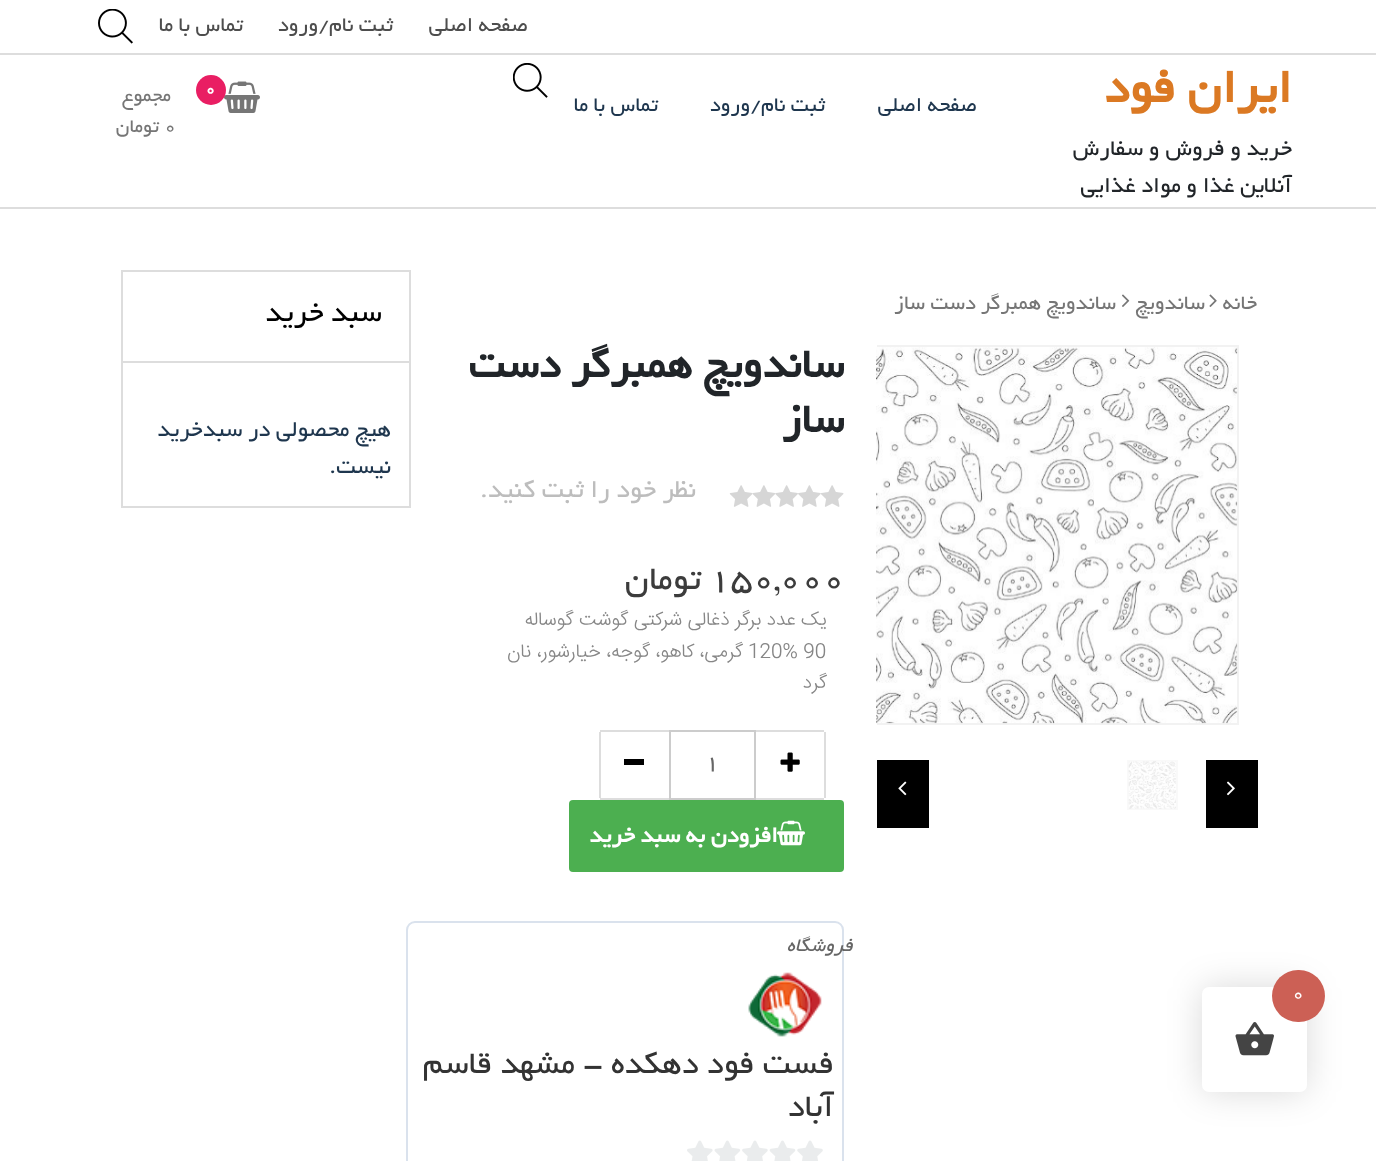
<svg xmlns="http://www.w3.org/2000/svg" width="1376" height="1161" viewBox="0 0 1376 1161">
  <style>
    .t1 { font: 21px '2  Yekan'; fill: #fff; }
    .t2 { font: 22.75px '2  Yekan'; direction: rtl; fill: #4d4d4d; }
    .t3 { font: bold 52.5px '2  Yekan'; direction: rtl; fill: #db7923; }
    .t4 { font: 24.5px '2  Yekan'; direction: rtl; fill: #212529; }
    .t5 { font: 22.75px '2  Yekan'; direction: rtl; fill: #1e364e; }
    .t6 { font: bold 18px '2  Yekan'; fill: #fff; }
    .t7 { font: 21px '2  Yekan'; direction: rtl; fill: #767676; }
    .t8 { font: 21px '2  Yekan'; fill: #767676; }
    .t9 { font: 22.5px '2  Yekan'; direction: rtl; fill: #767676; }
    .t10 { font: bold 45.5px '2  Yekan'; direction: rtl; fill: #212529; }
    .t11 { font: 28px '2  Yekan'; direction: rtl; fill: #bdbdbd; }
    .t12 { font: 37px '2  Yekan'; fill: #3c3c3c; }
    .t13 { font: 37px '2  Yekan'; direction: rtl; fill: #3c3c3c; }
    .t14 { font: 300 19.25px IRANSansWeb; direction: rtl; fill: #868686; }
    .t15 { font: 300 19.25px IRANSansWeb; fill: #868686; }
    .t16 { font: 24.5px '2  Yekan'; fill: #666; }
    .t17 { font: bold 24.5px '2  Yekan'; direction: rtl; fill: #fff; }
    .t18 { font: italic 21px '2  Yekan'; letter-spacing: 3.5px; direction: rtl; fill: #666; }
    .t19 { font: 35px '2  Yekan'; direction: rtl; fill: #333; }
    .t20 { font: 31.5px '2  Yekan'; direction: rtl; fill: #000; }
    .t21 { font: 24.5px '2  Yekan'; direction: rtl; fill: #1e364e; }
  </style>
  <defs>
    <clipPath id="clip1"><rect x="877" y="345" width="381" height="397"/></clipPath>
  </defs>
  <rect width="100%" height="100%" fill="#fff"/>
  <rect x="1202" y="987" width="105" height="105" rx="7" fill="#00000026" filter="blur(17.5px)"/>
  <rect x="1202" y="987" width="105" height="105" rx="7" fill="#fff"/>
  <rect x="1272" y="970" width="53" height="52" rx="26" fill="#cc6055"/>
  <text x="1292" y="999" class="t1">0</text>
  <image x="1235" y="1022" width="39" height="34" href="images/1.png"/>
  <rect x="0" y="53" width="1376" height="2" fill="#ddd"/>
  <text x="528" y="31" class="t2">صفحه اصلی</text>
  <text x="393" y="31" class="t2">ثبت نام/ورود</text>
  <text x="243" y="31" class="t2">تماس با ما</text>
  <image x="98" y="9" width="35" height="35" href="images/2.png"/>
  <rect x="0" y="207" width="1376" height="2" fill="#ddd"/>
  <text x="1292" y="102" class="t3">ایران فود</text>
  <text x="1292" y="155" class="t4">خرید و فروش و سفارش</text>
  <text x="1292" y="192" class="t4">آنلاین غذا و مواد غذایی</text>
  <image x="513" y="63" width="35" height="35" href="images/3.png"/>
  <text x="977" y="111" class="t5">صفحه اصلی</text>
  <text x="825" y="111" class="t5">ثبت نام/ورود</text>
  <text x="658" y="111" class="t5">تماس با ما</text>
  <image x="224" y="81" width="36" height="32" href="images/4.png"/>
  <circle cx="211" cy="90" r="15" fill="#e91e63"/>
  <text x="205" y="94" class="t6">0</text>
  <text x="171" y="101" class="t7">مجموع</text>
  <text x="164" y="132" class="t8">0</text>
  <text x="159" y="132" class="t7">تومان</text>
  <text x="1257" y="309" class="t9">خانه</text>
  <image x="1209" y="294" width="8" height="13" href="images/5.png"/>
  <text x="1205" y="309" class="t9">ساندویچ</text>
  <image x="1122" y="294" width="8" height="13" href="images/6.png"/>
  <text x="1116" y="309" class="t9">ساندویچ همبرگر دست ساز</text>
  <g clip-path="url(#clip1)">
    <rect x="860" y="346" width="378" height="378" fill="none" stroke="#f2f2f2" stroke-width="2"/>
  </g>
  <image x="876" y="347" width="362" height="377" href="images/7.png"/>
  <rect x="1206" y="760" width="52" height="68" fill="#000"/>
  <image x="1227" y="781" width="8" height="15" href="images/8.png"/>
  <rect x="877" y="760" width="52" height="68" fill="#000"/>
  <image x="898" y="781" width="9" height="15" href="images/9.png"/>
  <rect x="1128" y="761" width="49" height="48" fill="none" stroke="#f9f9f9" stroke-width="2"/>
  <image x="1128" y="761" width="48" height="48" href="images/10.png"/>
  <text x="844" y="377" class="t10">ساندویچ همبرگر دست</text>
  <text x="844" y="432" class="t10">ساز</text>
  <image x="729" y="485" width="115" height="22" href="images/11.png"/>
  <text x="696" y="497" class="t11">نظر خود را ثبت کنید.</text>
  <text x="709" y="589" class="t12">150,000</text>
  <text x="701" y="589" class="t13">تومان</text>
  <text x="827" y="625" class="t14">یک عدد برگر ذغالی شرکتی گوشت گوساله</text>
  <text x="748" y="657" class="t15">120% 90</text>
  <text x="743" y="657" class="t14">گرمی، کاهو، گوجه، خیارشور، نان</text>
  <text x="827" y="688" class="t14">گرد</text>
  <rect x="756" y="730" width="68" height="2" fill="#ddd"/>
  <rect x="824" y="732" width="2" height="66" fill="#ddd"/>
  <rect x="756" y="798" width="68" height="2" fill="#ddd"/>
  <image x="780" y="752" width="20" height="20" href="images/12.png"/>
  <rect x="670" y="731" width="85" height="68" fill="none" stroke="#ccc" stroke-width="2"/>
  <text x="705" y="769" class="t16">1</text>
  <rect x="600" y="730" width="69" height="2" fill="#ddd"/>
  <rect x="600" y="798" width="69" height="2" fill="#ddd"/>
  <rect x="599" y="732" width="2" height="66" fill="#ddd"/>
  <rect x="624" y="759" width="20" height="6" fill="#000"/>
  <rect x="569" y="800" width="275" height="72" rx="4" fill="#4caf50"/>
  <image x="777" y="820" width="28" height="26" href="images/13.png"/>
  <text x="778" y="842" class="t17">افزودن به سبد خرید</text>
  <rect x="407" y="922" width="436" height="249" rx="8" fill="none" stroke="#dae2ed" stroke-width="2"/>
  <text x="853" y="951" class="t18">فروشگاه</text>
  <image x="748" y="972" width="74" height="65" href="images/14.png"/>
  <text x="834" y="1073" class="t19">فست فود دهکده - مشهد قاسم</text>
  <text x="834" y="1116" class="t19">آباد</text>
  <image x="687" y="1140" width="136" height="21" href="images/15.png"/>
  <rect x="122" y="271" width="288" height="236" fill="none" stroke="#ddd" stroke-width="2"/>
  <text x="382" y="321" class="t20">سبد خرید</text>
  <rect x="123" y="361" width="287" height="2" fill="#ddd"/>
  <text x="391" y="436" class="t21">هیچ محصولی در سبدخرید</text>
  <text x="391" y="473" class="t21">نیست.</text>
</svg>
